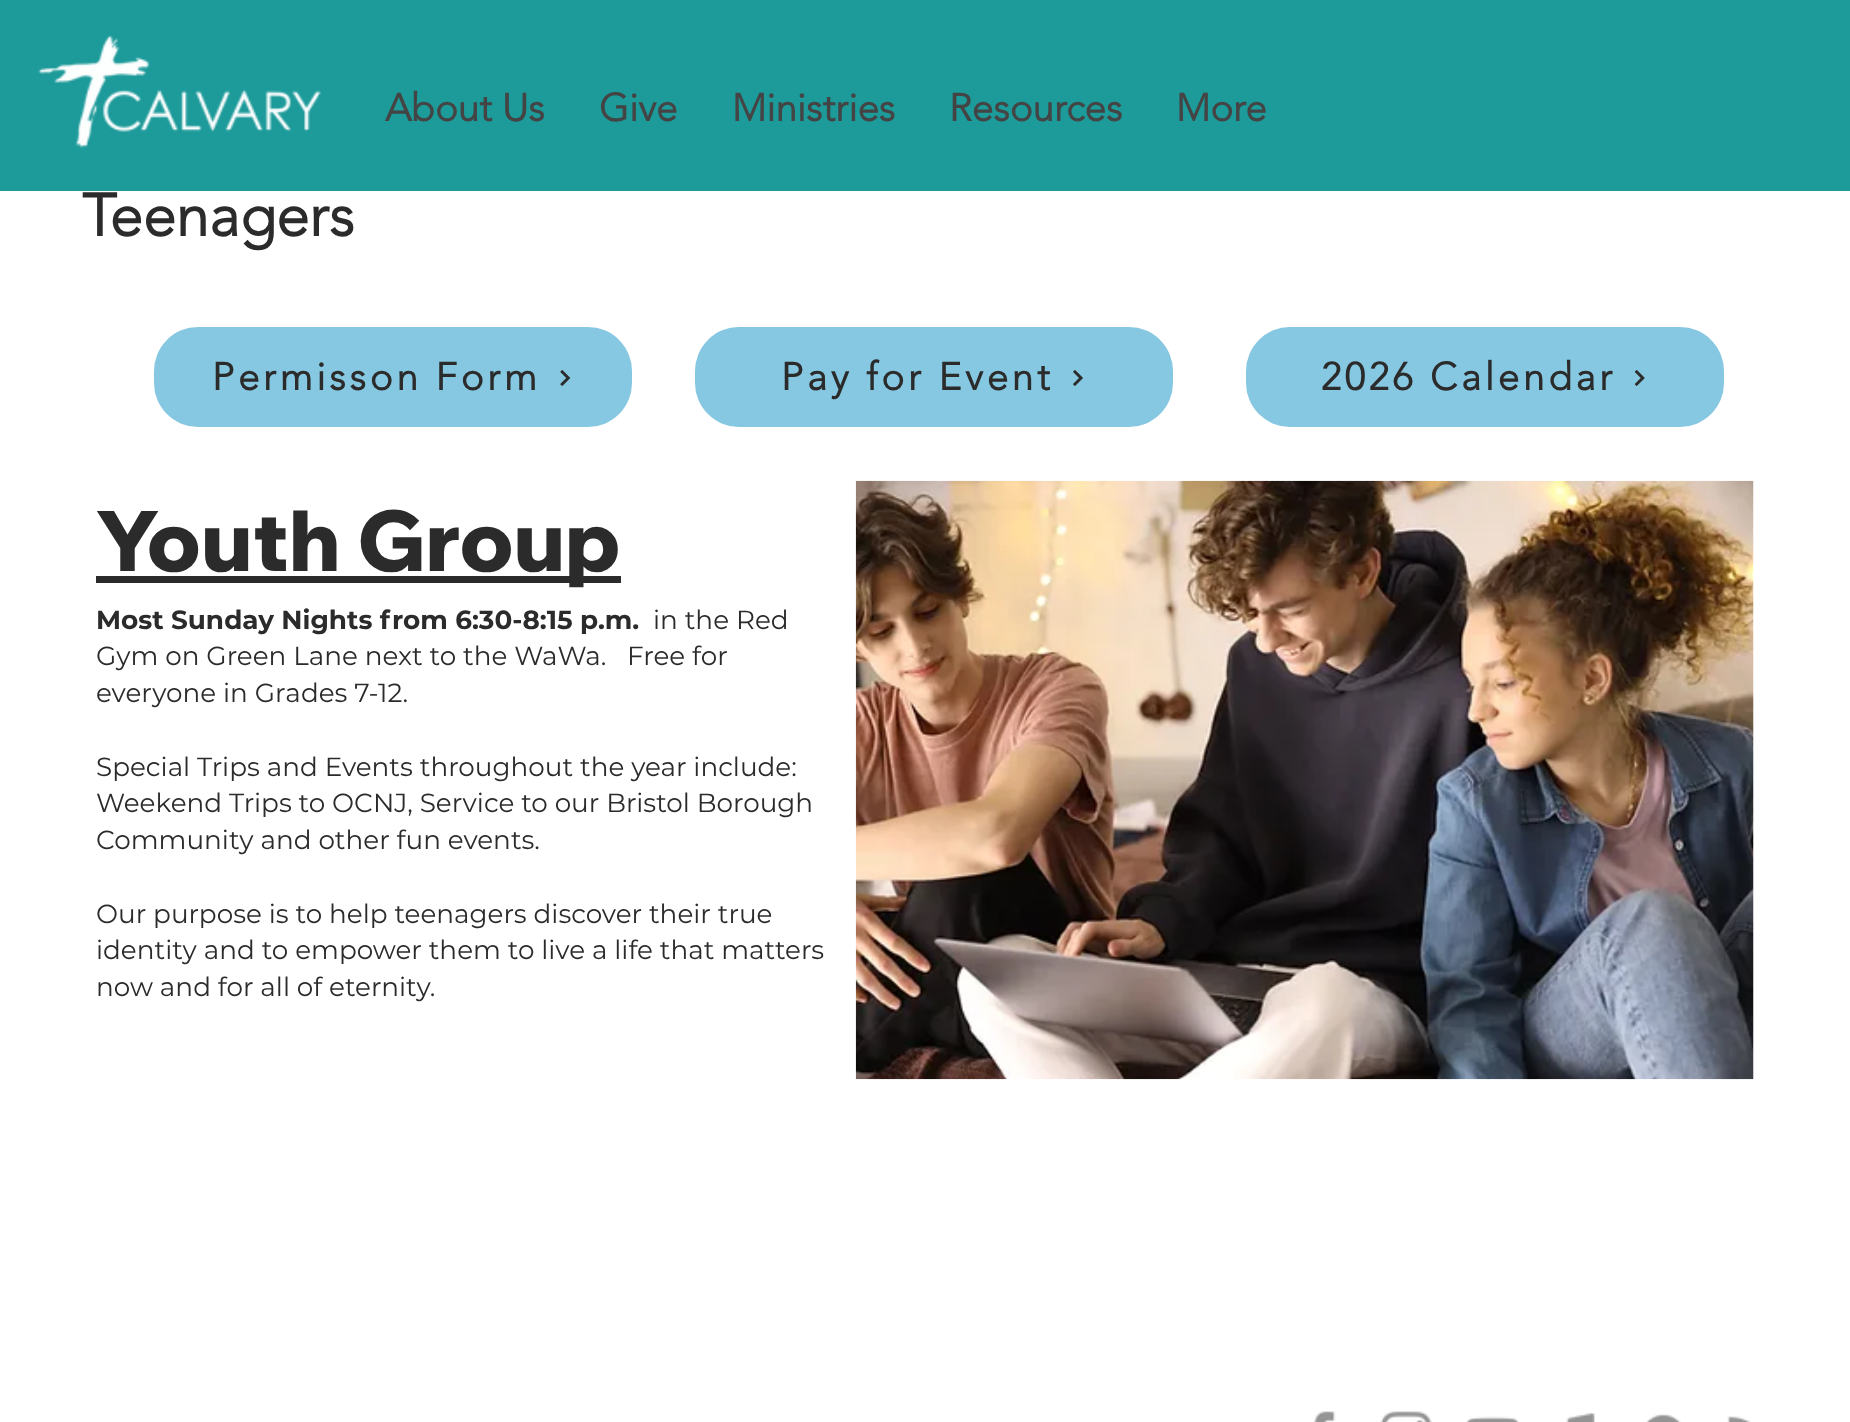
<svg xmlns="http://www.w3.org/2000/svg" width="1850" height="1422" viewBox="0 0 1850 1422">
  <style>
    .t1 { font: bold 38.5px 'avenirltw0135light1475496'; fill: #444; }
    .t2 { font: bold 59.5px 'avenirltw0135light1475496'; fill: #2b2b2b; }
    .t3 { font: bold 38.5px 'avenirltw0135light1475496'; letter-spacing: 3.8px; fill: #2b2b2b; }
    .t4 { font: 800 84px Wix Madefor Display; fill: #2b2b2b; }
    .t5 { font: bold 26.25px Montserrat; fill: #2b2b2b; }
    .t6 { font: 26.25px Montserrat; fill: #2b2b2b; }
  </style>
  <rect width="100%" height="100%" fill="#fff"/>
  <rect x="0" y="0" width="1850" height="191" fill="#1d9a9a"/>
  <image x="38" y="35" width="283" height="113" href="images/1.png"/>
  <text x="385" y="121" class="t1">About Us</text>
  <text x="599" y="121" class="t1">Give</text>
  <text x="732" y="121" class="t1">Ministries</text>
  <text x="949" y="121" class="t1">Resources</text>
  <text x="1176" y="121" class="t1">More</text>
  <text x="82" y="236" class="t2">Teenagers</text>
  <rect x="154" y="327" width="478" height="100" rx="44" fill="#86c7e1"/>
  <text x="212" y="390" class="t3">Permisson Form</text>
  <image x="560" y="370" width="11" height="16" href="images/2.png"/>
  <rect x="695" y="327" width="478" height="100" rx="44" fill="#86c7e1"/>
  <text x="781" y="390" class="t3">Pay for Event</text>
  <image x="1073" y="370" width="10" height="16" href="images/3.png"/>
  <rect x="1246" y="327" width="478" height="100" rx="44" fill="#86c7e1"/>
  <text x="1321" y="390" class="t3">2026 Calendar</text>
  <image x="1634" y="370" width="11" height="16" href="images/4.png"/>
  <rect x="96" y="576" width="525" height="7" fill="#2b2b2b"/>
  <text x="96" y="571" class="t4">Youth Group</text>
  <text x="96" y="629" class="t5">Most Sunday Nights from 6:30-8:15 p.m.</text>
  <text x="653" y="629" class="t6">in the Red</text>
  <text x="96" y="665" class="t6" xml:space="preserve">Gym on Green Lane next to the WaWa.   Free for</text>
  <text x="96" y="702" class="t6">everyone in Grades 7-12.</text>
  <text x="96" y="776" class="t6">Special Trips and Events throughout the year include:</text>
  <text x="96" y="812" class="t6">Weekend Trips to OCNJ, Service to our Bristol Borough</text>
  <text x="96" y="849" class="t6">Community and other fun events.</text>
  <text x="96" y="923" class="t6">Our purpose is to help teenagers discover their true</text>
  <text x="96" y="959" class="t6">identity and to empower them to live a life that matters</text>
  <text x="96" y="996" class="t6">now and for all of eternity.</text>
  <image x="855" y="480" width="899" height="600" href="images/5.png"/>
  <image x="1314" y="1411" width="22" height="11" href="images/6.png"/>
  <image x="1380" y="1411" width="52" height="11" href="images/7.png"/>
  <image x="1466" y="1416" width="53" height="6" href="images/8.png"/>
  <image x="1566" y="1413" width="29" height="9" href="images/9.png"/>
  <image x="1646" y="1413" width="35" height="9" href="images/10.png"/>
  <image x="1727" y="1416" width="24" height="6" href="images/11.png"/>
</svg>
